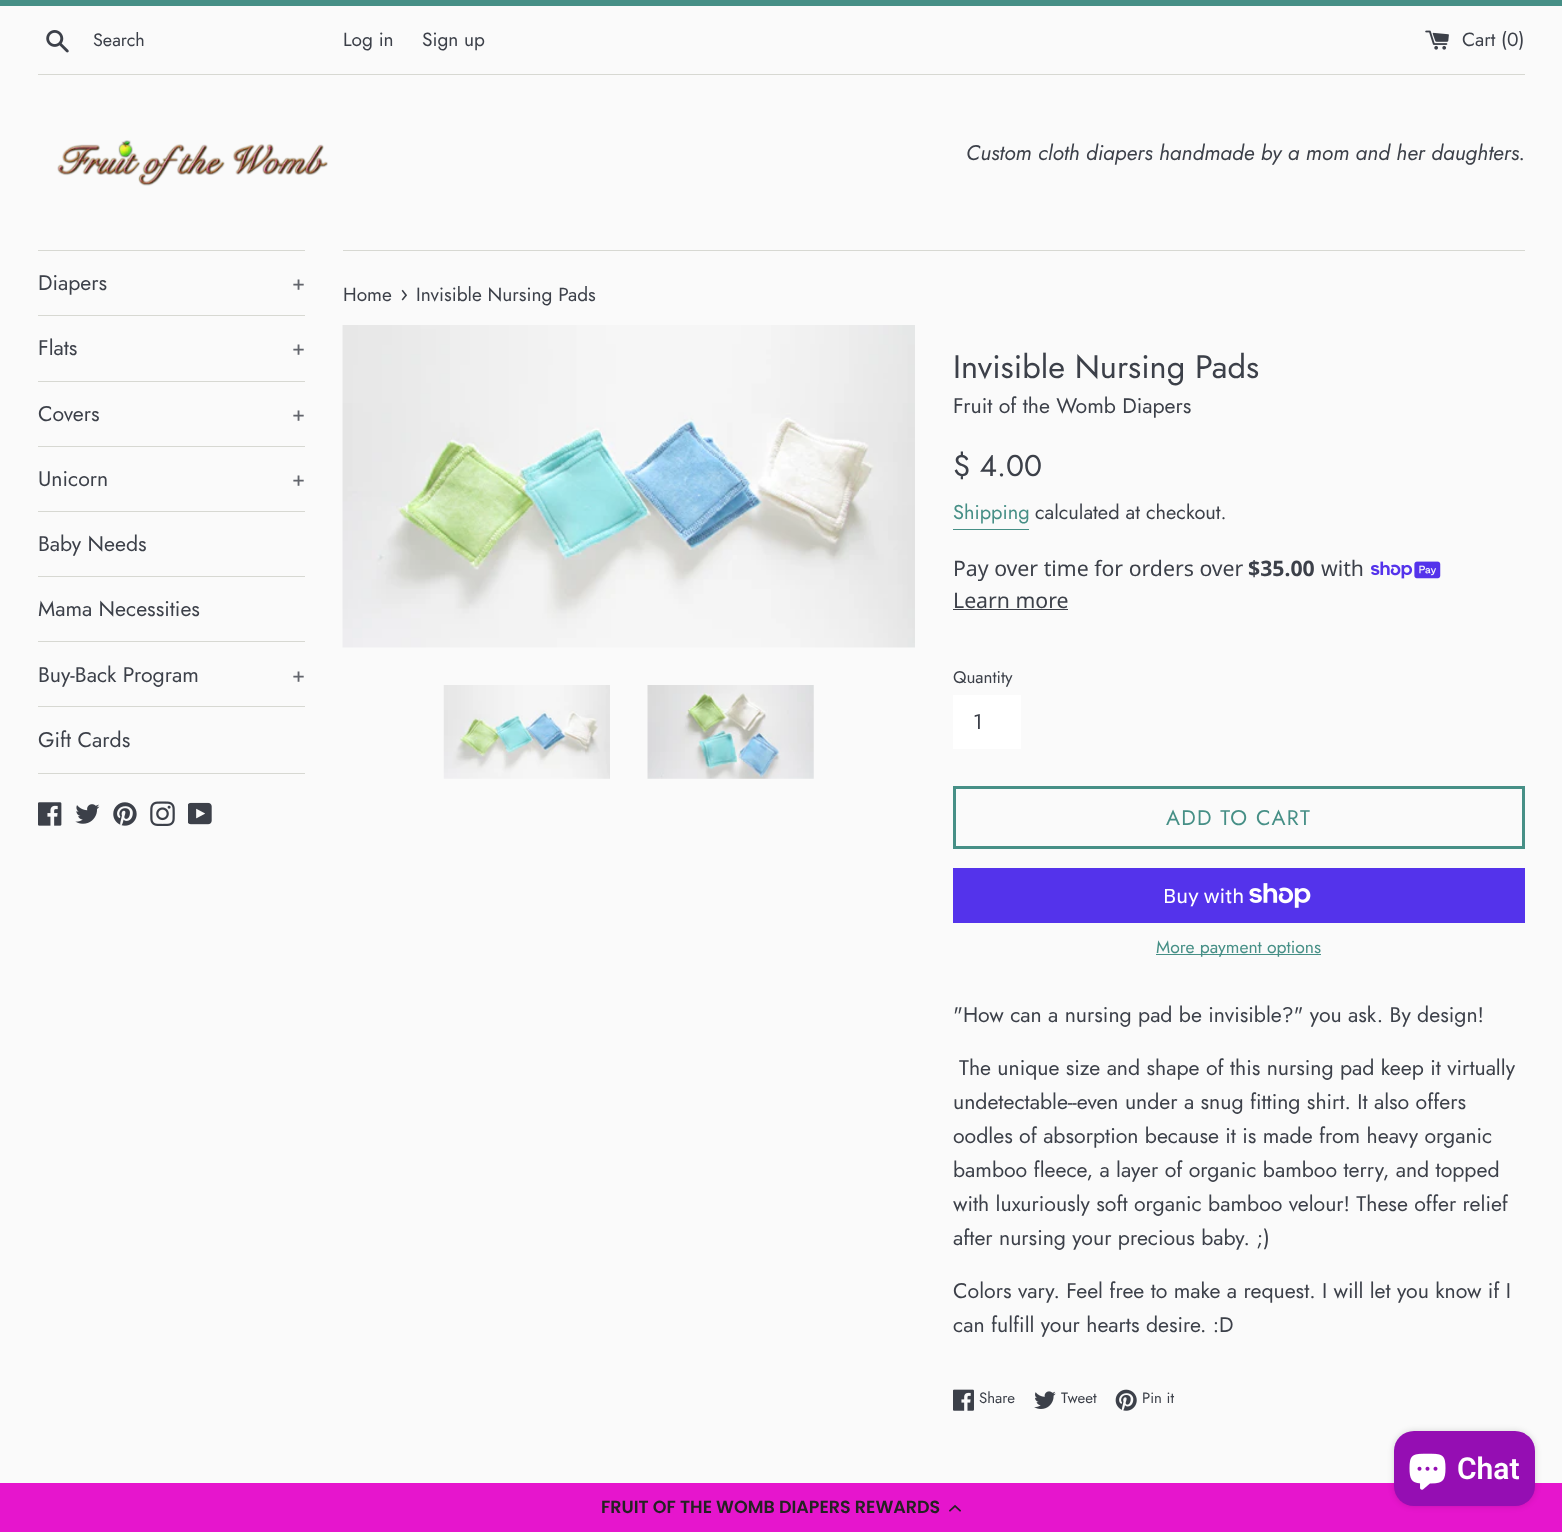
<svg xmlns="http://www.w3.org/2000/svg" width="1562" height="1532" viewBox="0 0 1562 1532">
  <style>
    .t1 { font: 18px Jost; fill: #3c4049; }
    .t2 { font: 19.1px Jost; fill: #3c4049; }
    .t3 { font: italic 21.25px Jost; fill: #3c4049; }
    .t4 { font: 21.25px Jost; fill: #3c4049; }
    .t5 { font: 21.25px Jost; fill: #62656c; }
    .t6 { font: 23px Jost; fill: #3c4049; }
    .t7 { font: 32.5px Jost; fill: #3c4049; }
    .t8 { font: 30px Jost; fill: #3c4049; }
    .t9 { font: 20px Jost; fill: #468f86; }
    .t10 { font: 20px Jost; fill: #3c4049; }
    .t11 { font: 21.25px Noto Sans; fill: #3c4049; }
    .t12 { font: bold 21.25px Noto Sans; fill: #3c4049; }
    .t13 { font: 17px Jost; fill: #3c4049; }
    .t14 { font: 21.25px Jost; letter-spacing: 1.25px; fill: #468f86; }
    .t15 { font: 20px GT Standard; fill: #fff; }
    .t16 { font: 17.5px Jost; fill: #468f86; }
    .t17 { font: 15px Jost; fill: #3c4049; }
    .t18 { font: 600 30px Roboto; fill: #fff; }
    .t19 { font: 600 17.5px Poppins; fill: #242222; }
  </style>
  <rect width="100%" height="100%" fill="#fafafa"/>
  <rect x="0" y="0" width="1562" height="6" fill="#468f86"/>
  <image x="46" y="30" width="23" height="23" href="images/1.png"/>
  <text x="93" y="46" class="t1">Search</text>
  <text x="343" y="46" class="t2">Log in</text>
  <text x="422" y="46" class="t2">Sign up</text>
  <image x="1425" y="30" width="24" height="20" href="images/2.png"/>
  <text x="1462" y="46" class="t2">Cart (0)</text>
  <rect x="38" y="74" width="1487" height="1" fill="#d7d8d2"/>
  <image x="57" y="140" width="271" height="46" href="images/3.png"/>
  <text x="966" y="160" class="t3">Custom cloth diapers handmade by a mom and her daughters.</text>
  <rect x="38" y="250" width="267" height="1" fill="#d7d8d2"/>
  <rect x="38" y="315" width="267" height="1" fill="#d7d8d2"/>
  <text x="38" y="290" class="t4">Diapers</text>
  <text x="292" y="290" class="t5">+</text>
  <rect x="38" y="381" width="267" height="1" fill="#d7d8d2"/>
  <text x="38" y="355" class="t4">Flats</text>
  <text x="292" y="355" class="t5">+</text>
  <rect x="38" y="446" width="267" height="1" fill="#d7d8d2"/>
  <text x="38" y="421" class="t4">Covers</text>
  <text x="292" y="421" class="t5">+</text>
  <rect x="38" y="511" width="267" height="1" fill="#d7d8d2"/>
  <text x="38" y="486" class="t4">Unicorn</text>
  <text x="292" y="486" class="t5">+</text>
  <rect x="38" y="576" width="267" height="1" fill="#d7d8d2"/>
  <text x="38" y="551" class="t4">Baby Needs</text>
  <rect x="38" y="641" width="267" height="1" fill="#d7d8d2"/>
  <text x="38" y="616" class="t4">Mama Necessities</text>
  <rect x="38" y="706" width="267" height="1" fill="#d7d8d2"/>
  <text x="38" y="682" class="t4">Buy-Back Program</text>
  <text x="292" y="682" class="t5">+</text>
  <rect x="38" y="773" width="267" height="1" fill="#d7d8d2"/>
  <text x="38" y="747" class="t4">Gift Cards</text>
  <image x="38" y="802" width="24" height="24" href="images/4.png"/>
  <image x="75" y="804" width="25" height="20" href="images/5.png"/>
  <image x="113" y="802" width="24" height="24" href="images/6.png"/>
  <image x="150" y="801" width="25" height="25" href="images/7.png"/>
  <image x="188" y="802" width="24" height="23" href="images/8.png"/>
  <rect x="343" y="250" width="1182" height="1" fill="#d7d8d2"/>
  <text x="343" y="301" class="t2">Home</text>
  <text x="400" y="301" class="t6">›</text>
  <text x="416" y="301" class="t2">Invisible Nursing Pads</text>
  <image x="342" y="325" width="573" height="323" href="images/9.png"/>
  <image x="443" y="685" width="167" height="94" href="images/10.png"/>
  <image x="647" y="685" width="167" height="94" href="images/11.png"/>
  <text x="953" y="378" class="t7">Invisible Nursing Pads</text>
  <text x="953" y="413" class="t4">Fruit of the Womb Diapers</text>
  <text x="953" y="476" class="t8">$ 4.00</text>
  <text x="953" y="519" class="t9">Shipping</text>
  <rect x="953" y="529" width="76" height="1" fill="#468f86"/>
  <text x="1035" y="519" class="t10">calculated at checkout.</text>
  <text x="953" y="576" class="t11">Pay over time for orders over</text>
  <text x="1248" y="576" class="t12">$35.00</text>
  <text x="1321" y="576" class="t11">with</text>
  <image x="1371" y="561" width="70" height="18" href="images/12.png"/>
  <text x="953" y="608" class="t11">Learn more</text>
  <rect x="953" y="609" width="115" height="1" fill="#3c4049"/>
  <text x="953" y="683" class="t13">Quantity</text>
  <rect x="953" y="695" width="68" height="54" fill="#fff"/>
  <text x="973" y="729" class="t4">1</text>
  <rect x="954.5" y="787.5" width="569" height="60" fill="none" stroke="#468f86" stroke-width="3"/>
  <text x="1166" y="825" class="t14">ADD TO CART</text>
  <rect x="953" y="868" width="572" height="55" fill="#5433eb"/>
  <text x="1163" y="903" class="t15">Buy with</text>
  <image x="1249" y="883" width="62" height="25" href="images/13.png"/>
  <rect x="1156" y="954" width="165" height="1" fill="#468f86"/>
  <text x="1156" y="953" class="t16">More payment options</text>
  <text x="953" y="1022" class="t4">"How can a nursing pad be invisible?" you ask. By design!</text>
  <text x="959" y="1075" class="t4">The unique size and shape of this nursing pad keep it virtually</text>
  <text x="953" y="1109" class="t4">undetectable--even under a snug fitting shirt. It also offers</text>
  <text x="953" y="1143" class="t4">oodles of absorption because it is made from heavy organic</text>
  <text x="953" y="1177" class="t4">bamboo fleece, a layer of organic bamboo terry, and topped</text>
  <text x="953" y="1211" class="t4">with luxuriously soft organic bamboo velour! These offer relief</text>
  <text x="953" y="1245" class="t4">after nursing your precious baby. ;)</text>
  <text x="953" y="1298" class="t4">Colors vary. Feel free to make a request. I will let you know if I</text>
  <text x="953" y="1332" class="t4">can fulfill your hearts desire. :D</text>
  <image x="953" y="1389" width="21" height="22" href="images/14.png"/>
  <text x="979" y="1403" class="t17">Share</text>
  <image x="1034" y="1391" width="22" height="18" href="images/15.png"/>
  <text x="1061" y="1403" class="t17">Tweet</text>
  <image x="1115" y="1389" width="22" height="22" href="images/16.png"/>
  <text x="1142" y="1403" class="t17">Pin it</text>
  <rect x="0" y="1483" width="1562" height="49" fill="#e615cd"/>
  <rect x="1394" y="1431" width="141" height="75" rx="20" fill="#00000026" filter="blur(3px)"/>
  <rect x="1394" y="1431" width="141" height="75" rx="20" fill="#950eb3"/>
  <image x="1409" y="1453" width="37" height="37" href="images/17.png"/>
  <text x="1457" y="1479" class="t18">Chat</text>
  <text x="601" y="1513" class="t19">FRUIT OF THE WOMB DIAPERS REWARDS</text>
  <image x="949" y="1504" width="12" height="8" href="images/18.png"/>
</svg>
